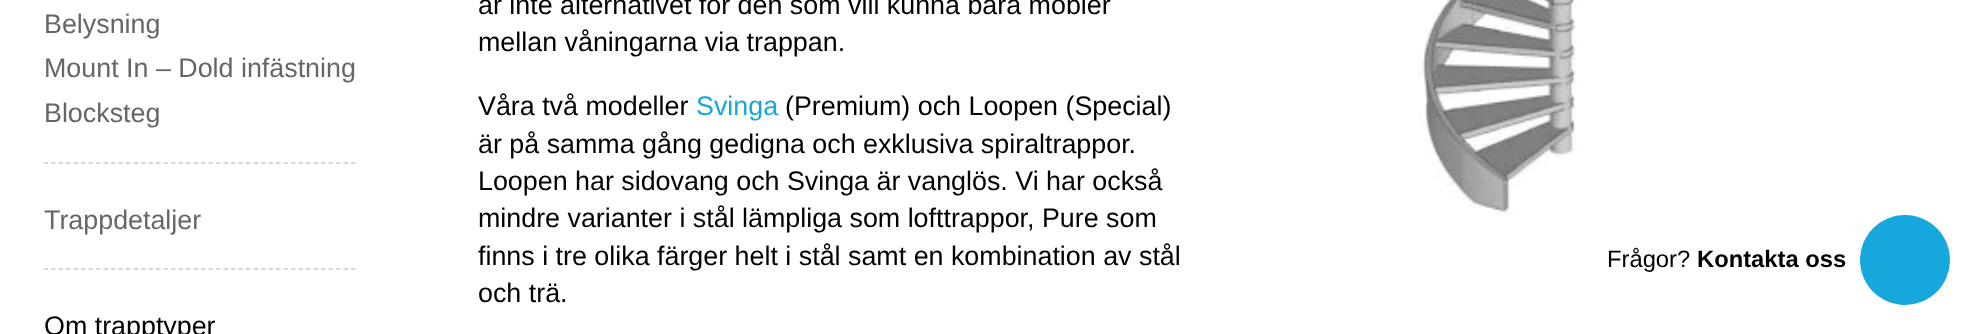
<svg xmlns="http://www.w3.org/2000/svg" width="1979" height="334" viewBox="0 0 1979 334">
  <style>
    .t1 { font: 26.85px Liberation Sans; fill: #646669; }
    .t2 { font: 26.85px Liberation Sans; fill: #000; }
    .t3 { font: 26.85px Liberation Sans; fill: #16a7dc; }
    .t4 { font: 23.75px Liberation Sans; fill: #000; }
    .t5 { font: bold 23.75px Liberation Sans; fill: #000; }
  </style>
  <rect width="100%" height="100%" fill="#fff"/>
  <text x="44" y="33" class="t1">Belysning</text>
  <text x="44" y="77" class="t1">Mount In – Dold infästning</text>
  <path d="M43.5 163H355.5" fill="none" stroke="#ccc" stroke-width="1.5" stroke-dasharray="4.5 3"/>
  <text x="44" y="122" class="t1">Blocksteg</text>
  <path d="M43.5 269H355.5" fill="none" stroke="#ccc" stroke-width="1.5" stroke-dasharray="4.5 3"/>
  <text x="44" y="229" class="t1">Trappdetaljer</text>
  <text x="44" y="335" class="t2">Om trapptyper</text>
  <text x="478" y="14" class="t2">är inte alternativet för den som vill kunna bära möbler</text>
  <text x="478" y="51" class="t2">mellan våningarna via trappan.</text>
  <text x="478" y="115" class="t2">Våra två modeller</text>
  <text x="696" y="115" class="t3">Svinga</text>
  <text x="785" y="115" class="t2">(Premium) och Loopen (Special)</text>
  <text x="478" y="153" class="t2">är på samma gång gedigna och exklusiva spiraltrappor.</text>
  <text x="478" y="190" class="t2">Loopen har sidovang och Svinga är vanglös. Vi har också</text>
  <text x="478" y="227" class="t2">mindre varianter i stål lämpliga som lofttrappor, Pure som</text>
  <text x="478" y="265" class="t2">finns i tre olika färger helt i stål samt en kombination av stål</text>
  <text x="478" y="302" class="t2">och trä.</text>
  <image x="1418" y="0" width="159" height="215" href="images/1.png"/>
  <circle cx="1905" cy="260" r="45" fill="#16a7dc"/>
  <text x="1607" y="267" class="t4">Frågor?</text>
  <text x="1697" y="267" class="t5">Kontakta oss</text>
</svg>
